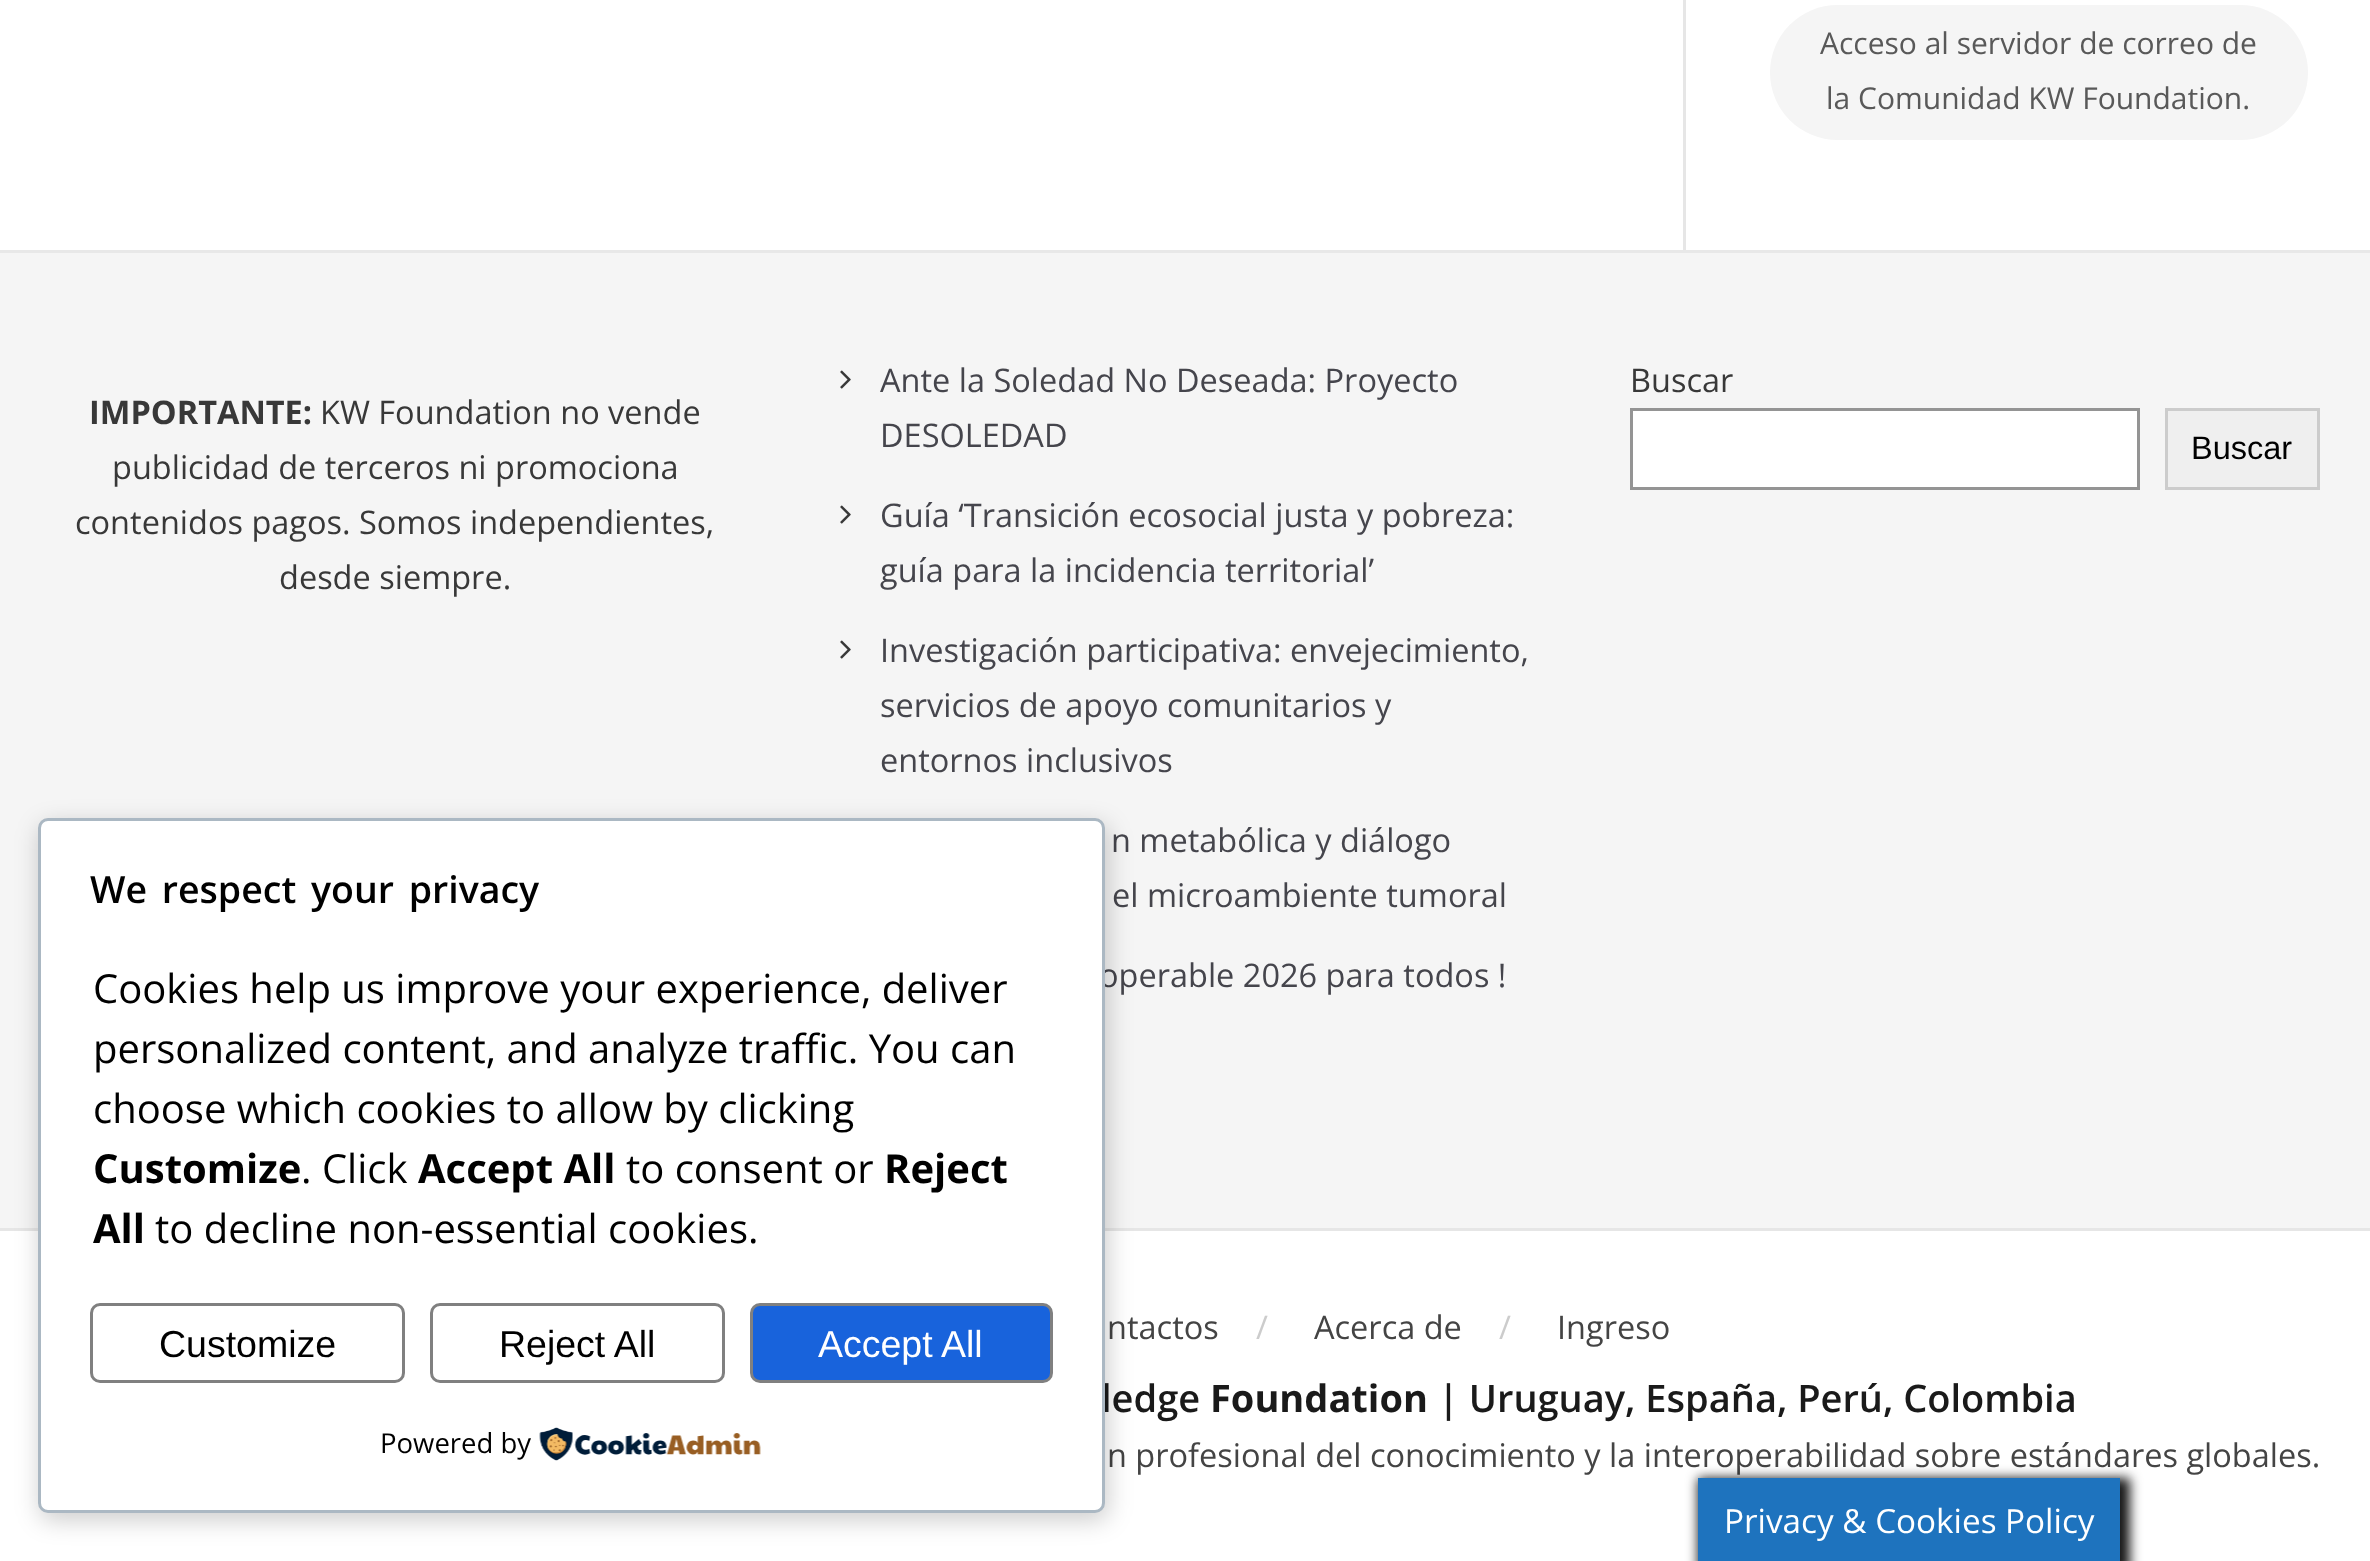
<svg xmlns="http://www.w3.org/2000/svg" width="2370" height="1561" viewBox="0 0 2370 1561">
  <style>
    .t1 { font: 30px Open Sans; fill: #595959; }
    .t2 { font: bold 32.5px Open Sans; fill: #383838; }
    .t3 { font: 32.5px Open Sans; fill: #383838; }
    .t4 { font: 32.5px Open Sans; fill: #45454c; }
    .t5 { font: 32.5px Liberation Sans; fill: #000; }
    .t6 { font: 32.5px Open Sans; fill: #444; }
    .t7 { font: 32.5px Open Sans; fill: #ccc; }
    .t8 { font: 600 38px Open Sans; fill: #1a1a1a; }
    .t9 { font: bold 38px Open Sans; fill: #1a1a1a; }
    .t10 { font: 600 37.5px Open Sans; fill: #000; }
    .t11 { font: 40px Open Sans; fill: #000; }
    .t12 { font: bold 40px Open Sans; fill: #000; }
    .t13 { font: 37.5px Liberation Sans; fill: #000; }
    .t14 { font: 37.5px Liberation Sans; fill: #fff; }
    .t15 { font: 27.5px Open Sans; fill: #000; }
    .t16 { font: 33.25px Open Sans; fill: #fff; }
  </style>
  <rect width="100%" height="100%" fill="#fff"/>
  <rect x="1683" y="0" width="3" height="250" fill="#e6e6e6"/>
  <rect x="1770" y="5" width="538" height="135" rx="67.5" fill="#f5f5f5"/>
  <text x="1820" y="54" class="t1">Acceso al servidor de correo de</text>
  <text x="1826" y="109" class="t1">la Comunidad KW Foundation.</text>
  <rect x="0" y="253" width="2370" height="975" fill="#f5f5f5"/>
  <rect x="0" y="250" width="2370" height="3" fill="#e8e8e8"/>
  <text x="89" y="424" class="t2">IMPORTANTE:</text>
  <text x="320" y="424" class="t3">KW Foundation no vende</text>
  <text x="112" y="479" class="t3">publicidad de terceros ni promociona</text>
  <text x="75" y="534" class="t3">contenidos pagos. Somos independientes,</text>
  <text x="279" y="589" class="t3">desde siempre.</text>
  <image x="840" y="370" width="11" height="19" href="images/1.png"/>
  <text x="880" y="392" class="t4">Ante la Soledad No Deseada: Proyecto</text>
  <text x="880" y="447" class="t4">DESOLEDAD</text>
  <image x="840" y="505" width="11" height="19" href="images/1.png"/>
  <text x="880" y="527" class="t4">Guía ‘Transición ecosocial justa y pobreza:</text>
  <text x="880" y="582" class="t4">guía para la incidencia territorial’</text>
  <image x="840" y="640" width="11" height="19" href="images/1.png"/>
  <text x="880" y="662" class="t4">Investigación participativa: envejecimiento,</text>
  <text x="880" y="717" class="t4">servicios de apoyo comunitarios y</text>
  <text x="880" y="772" class="t4">entornos inclusivos</text>
  <text x="1111" y="852" class="t4">n metabólica y diálogo</text>
  <text x="1112" y="907" class="t4">el microambiente tumoral</text>
  <text x="1099" y="987" class="t4">operable 2026 para todos !</text>
  <text x="1630" y="392" class="t3">Buscar</text>
  <rect x="1631.5" y="409.5" width="507" height="79" fill="#fff" stroke="#949494" stroke-width="3"/>
  <rect x="2166.5" y="409.5" width="152" height="79" fill="#efefef" stroke="#ccc" stroke-width="3"/>
  <text x="2191" y="459" class="t5">Buscar</text>
  <rect x="0" y="1228" width="2370" height="3" fill="#e6e6e6"/>
  <text x="1107" y="1339" class="t6">ntactos</text>
  <text x="1256" y="1339" class="t7">/</text>
  <text x="1314" y="1339" class="t6">Acerca de</text>
  <text x="1499" y="1339" class="t7">/</text>
  <text x="1557" y="1339" class="t6">Ingreso</text>
  <text x="1101" y="1412" class="t8">ledge</text>
  <text x="1210" y="1412" class="t9">Foundation</text>
  <text x="1438" y="1412" class="t8">| Uruguay, España, Perú, Colombia</text>
  <text x="1107" y="1467" class="t6">n profesional del conocimiento y la interoperabilidad sobre estándares globales.</text>
  <rect x="40" y="825" width="1068" height="695" rx="10" fill="#00000033" filter="blur(12.5px)"/>
  <rect x="39.5" y="819.5" width="1064" height="692" rx="8.5" fill="#fff" stroke="#abb8c3" stroke-width="3"/>
  <text x="90" y="903" word-spacing="5" class="t10">We respect your privacy</text>
  <text x="93" y="1003" class="t11">Cookies help us improve your experience, deliver</text>
  <text x="93" y="1063" class="t11">personalized content, and analyze traffic. You can</text>
  <text x="93" y="1123" class="t11">choose which cookies to allow by clicking</text>
  <text x="93" y="1183" class="t12">Customize</text>
  <text x="301" y="1183" class="t11">. Click</text>
  <text x="418" y="1183" class="t12">Accept All</text>
  <text x="626" y="1183" class="t11">to consent or</text>
  <text x="884" y="1183" class="t12">Reject</text>
  <text x="93" y="1243" class="t12">All</text>
  <text x="155" y="1243" class="t11">to decline non-essential cookies.</text>
  <rect x="91.5" y="1304.5" width="312" height="77" rx="8.5" fill="none" stroke="#808080" stroke-width="3"/>
  <text x="159" y="1357" class="t13">Customize</text>
  <rect x="431.5" y="1304.5" width="292" height="77" rx="8.5" fill="none" stroke="#808080" stroke-width="3"/>
  <text x="499" y="1357" class="t13">Reject All</text>
  <rect x="751.5" y="1304.5" width="300" height="77" rx="8.5" fill="#1863dc" stroke="#808080" stroke-width="3"/>
  <text x="818" y="1357" class="t14">Accept All</text>
  <text x="380" y="1453" class="t15">Powered by</text>
  <image x="539" y="1427" width="222" height="34" href="images/2.png"/>
  <rect x="1698" y="1478" width="432" height="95" fill="#161616" filter="blur(6px)"/>
  <rect x="1698" y="1478" width="422" height="83" fill="#1e73be"/>
  <text x="1724" y="1533" class="t16">Privacy &amp; Cookies Policy</text>
</svg>
